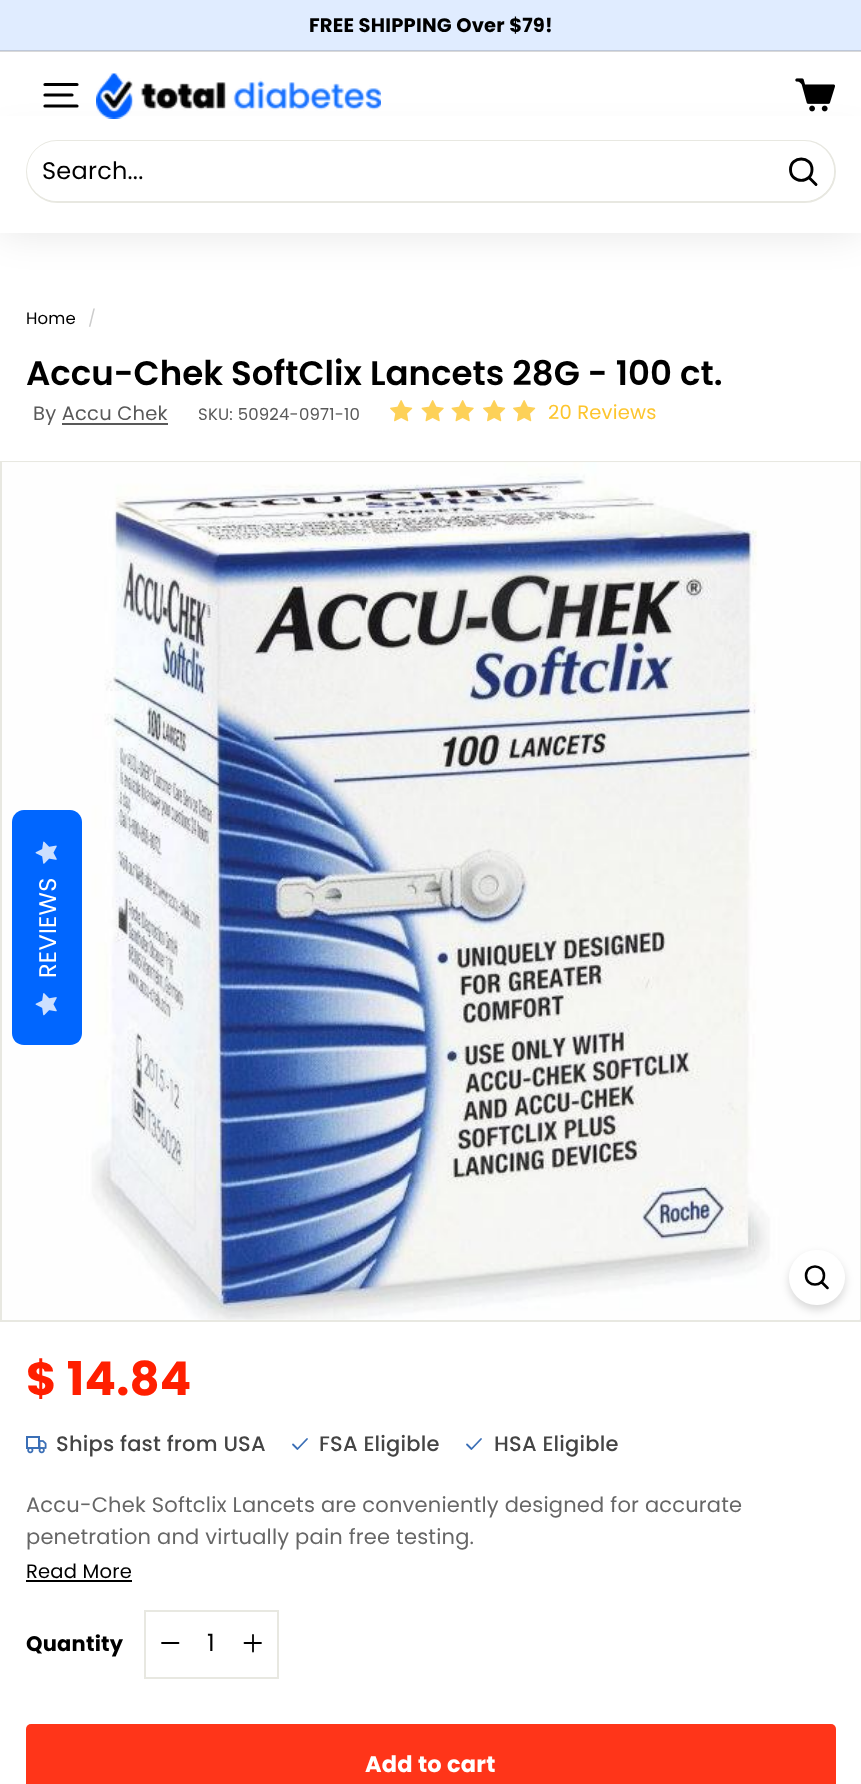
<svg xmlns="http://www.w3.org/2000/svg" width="861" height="1784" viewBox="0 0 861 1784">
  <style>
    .t1 { font: bold 19.5px Poppins; letter-spacing: 0.2px; fill: #000; }
    .t2 { font: 24px Poppins; letter-spacing: 0.25px; fill: #000; }
    .t3 { font: 16.5px Poppins; letter-spacing: 0.2px; fill: #000; }
    .t4 { font: 16.5px Poppins; letter-spacing: 0.2px; fill: #ccc; }
    .t5 { font: 600 34px Poppins; fill: #000; }
    .t6 { font: 19.5px Poppins; letter-spacing: 0.2px; fill: #595959; }
    .t7 { font: 16.5px Poppins; letter-spacing: 0.2px; fill: #595959; }
    .t8 { font: 19.5px Poppins; letter-spacing: 0.2px; fill: #fdc52e; }
    .t9 { font: bold 46.5px Poppins; letter-spacing: 0.2px; fill: #ff1f00; }
    .t10 { font: 500 21px Poppins; letter-spacing: 0.2px; fill: #444; }
    .t11 { font: 21px Poppins; letter-spacing: 0.2px; fill: #666; }
    .t12 { font: 19.5px Poppins; letter-spacing: 0.2px; fill: #000; }
    .t13 { font: bold 21px Poppins; letter-spacing: 0.2px; fill: #000; }
    .t14 { font: bold 22.5px Poppins; letter-spacing: 0.25px; fill: #fff; }
    .t15 { font: 24px Poppins; letter-spacing: 0.25px; fill: #fff; }
  </style>
  <rect width="100%" height="100%" fill="#fff"/>
  <rect x="0" y="0" width="861" height="51" fill="#e0ecff"/>
  <text x="309" y="32" class="t1">FREE SHIPPING Over $79!</text>
  <rect x="0" y="50" width="861" height="2" fill="#00000026"/>
  <rect x="0" y="140" width="861" height="93" fill="#0000001a" filter="blur(19px)"/>
  <path d="M45 84.5H77M45 95H72M45 106H77" fill="none" stroke="#000" stroke-width="3.2" stroke-linecap="round" stroke-linejoin="round"/>
  <rect x="0" y="116" width="861" height="117" fill="#fff"/>
  <image x="96" y="73" width="285" height="46" href="images/1.png"/>
  <image x="795" y="78" width="40" height="34" href="images/2.png"/>
  <rect x="27" y="141" width="808" height="61" rx="30.5" fill="none" stroke="#e8e8e1" stroke-width="2"/>
  <rect x="27" y="141" width="807" height="60" rx="30" fill="#fff"/>
  <text x="42" y="179" class="t2">Search...</text>
  <path d="M812 169.5C812 184 790.5 184 790.5 169.5C790.5 155.5 812 155.5 812 169.5ZM816 184.5L809 177.5" fill="none" stroke="#000" stroke-width="2.9" stroke-linecap="round" stroke-linejoin="round"/>
  <text x="26" y="324" class="t3">Home</text>
  <text x="88" y="324" class="t4">/</text>
  <text x="26" y="385" class="t5">Accu-Chek SoftClix Lancets 28G - 100 ct.</text>
  <text x="33" y="420" class="t6">By Accu Chek</text>
  <rect x="62" y="423" width="106" height="2" fill="#595959"/>
  <text x="198" y="420" class="t7">SKU: 50924-0971-10</text>
  <image x="390" y="400" width="23" height="22" href="images/3.png"/>
  <image x="421" y="400" width="23" height="22" href="images/4.png"/>
  <image x="451" y="400" width="23" height="22" href="images/4.png"/>
  <image x="483" y="400" width="23" height="22" href="images/3.png"/>
  <image x="513" y="400" width="23" height="22" href="images/3.png"/>
  <text x="548" y="419" class="t8">20 Reviews</text>
  <rect x="1" y="462" width="859" height="859" fill="none" stroke="#e8e8e1" stroke-width="2"/>
  <image x="2" y="462" width="858" height="858" href="images/5.png"/>
  <rect x="789" y="1254" width="56" height="56" rx="28" fill="#00000026" filter="blur(4.5px)"/>
  <rect x="789" y="1250" width="56" height="55" rx="27.5" fill="#fff"/>
  <path d="M824 1275.5C824 1287.5 806 1287.5 806 1275.5C806 1263.5 824 1263.5 824 1275.5ZM827.5 1288L821.5 1282" fill="none" stroke="#000" stroke-width="2.5" stroke-linecap="round" stroke-linejoin="round"/>
  <text x="26" y="1395" class="t9">$ 14.84</text>
  <image x="26" y="1436" width="21" height="18" href="images/6.png"/>
  <text x="56" y="1451" class="t10">Ships fast from USA</text>
  <path d="M307 1439L297.5 1449L293 1444.5" fill="none" stroke="#3b6fb6" stroke-width="1.8" stroke-linecap="round" stroke-linejoin="round"/>
  <text x="319" y="1451" class="t10">FSA Eligible</text>
  <path d="M481 1439L471.5 1449L467 1444.5" fill="none" stroke="#3b6fb6" stroke-width="1.8" stroke-linecap="round" stroke-linejoin="round"/>
  <text x="494" y="1451" class="t10">HSA Eligible</text>
  <text x="26" y="1512" class="t11">Accu-Chek Softclix Lancets are conveniently designed for accurate</text>
  <text x="26" y="1544" class="t11">penetration and virtually pain free testing.</text>
  <text x="26" y="1578" class="t12">Read More</text>
  <rect x="26" y="1580" width="106" height="2" fill="#000"/>
  <text x="26" y="1651" class="t13">Quantity</text>
  <rect x="145" y="1611" width="133" height="67" fill="none" stroke="#e8e8e1" stroke-width="2"/>
  <path d="M178.5 1643H162" fill="none" stroke="#000" stroke-width="1.8" stroke-linecap="round" stroke-linejoin="round"/>
  <text x="207" y="1651" class="t2">1</text>
  <path d="M253 1635V1651.5M261 1643H244.5" fill="none" stroke="#000" stroke-width="1.8" stroke-linecap="round" stroke-linejoin="round"/>
  <rect x="26" y="1724" width="810" height="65" rx="5" fill="#ff3519"/>
  <text x="365" y="1772" class="t14">Add to cart</text>
  <path d="M12 1033V822C12 816 17 810 24 810H70C77 810 82 816 82 822V1033C82 1040 77 1045 70 1045H24C17 1045 12 1040 12 1033Z" fill="#06f"/>
  <image x="35" y="841" width="22" height="23" href="images/7.png"/>
  <text x="56" y="978" transform="rotate(-90 56 978)" class="t15">REVIEWS</text>
  <image x="35" y="993" width="22" height="23" href="images/8.png"/>
</svg>
